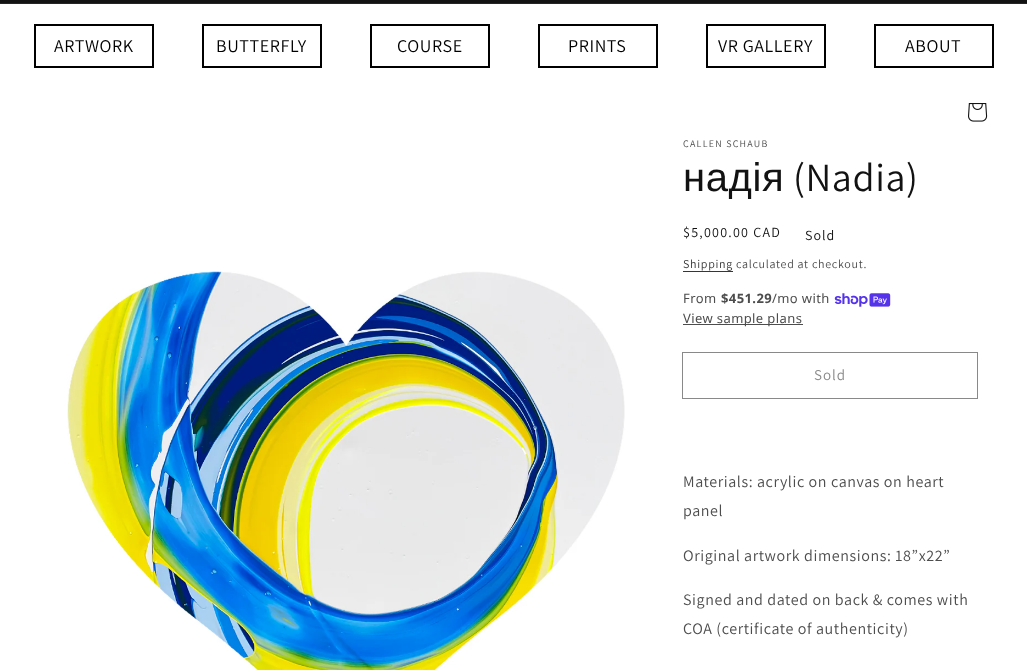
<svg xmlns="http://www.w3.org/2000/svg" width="1027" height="670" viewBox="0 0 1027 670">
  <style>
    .t1 { font: 18px Assistant; letter-spacing: 0.6px; fill: #000; }
    .t2 { font: 10px Assistant; letter-spacing: 1.25px; fill: #4d4d4d; }
    .t3 { font: 40px Liberation Sans; letter-spacing: 0.6px; fill: #121212; }
    .t4 { font: 40px Assistant; letter-spacing: 0.6px; fill: #121212; }
    .t5 { font: 14px Assistant; letter-spacing: 1.25px; fill: #121212; }
    .t6 { font: 14px Assistant; letter-spacing: 1px; fill: #121212; }
    .t7 { font: 12px Assistant; letter-spacing: 0.7px; fill: #363636; }
    .t8 { font: 12px Assistant; letter-spacing: 0.7px; fill: #4d4d4d; }
    .t9 { font: 13px Noto Sans; letter-spacing: 0.4px; fill: #4d4d4d; }
    .t10 { font: bold 13px Noto Sans; letter-spacing: 0.4px; fill: #4d4d4d; }
    .t11 { font: 15px Assistant; letter-spacing: 1px; fill: #898989; }
    .t12 { font: 16px Assistant; letter-spacing: 0.6px; fill: #4d4d4d; }
  </style>
  <rect width="100%" height="100%" fill="#fff"/>
  <rect x="0" y="0" width="1027" height="3" fill="#121212"/>
  <rect x="0" y="3" width="1027" height="1" fill="#252525"/>
  <rect x="35" y="25" width="118" height="42" fill="none" stroke="#000" stroke-width="2"/>
  <text x="54" y="52" class="t1">ARTWORK</text>
  <rect x="203" y="25" width="118" height="42" fill="none" stroke="#000" stroke-width="2"/>
  <text x="216" y="52" class="t1">BUTTERFLY</text>
  <rect x="371" y="25" width="118" height="42" fill="none" stroke="#000" stroke-width="2"/>
  <text x="397" y="52" class="t1">COURSE</text>
  <rect x="539" y="25" width="118" height="42" fill="none" stroke="#000" stroke-width="2"/>
  <text x="568" y="52" class="t1">PRINTS</text>
  <rect x="707" y="25" width="118" height="42" fill="none" stroke="#000" stroke-width="2"/>
  <text x="718" y="52" class="t1">VR GALLERY</text>
  <rect x="875" y="25" width="118" height="42" fill="none" stroke="#000" stroke-width="2"/>
  <text x="905" y="52" class="t1">ABOUT</text>
  <image x="968" y="103" width="20" height="19" href="images/1.png"/>
  <image x="67" y="271" width="558" height="399" href="images/2.png"/>
  <text x="683" y="147" class="t2">CALLEN SCHAUB</text>
  <text x="683" y="191" class="t3">надія</text>
  <text x="793" y="191" class="t4">(Nadia)</text>
  <text x="683" y="237" class="t5">$5,000.00 CAD</text>
  <text x="805" y="240" class="t6">Sold</text>
  <text x="683" y="268" class="t7">Shipping</text>
  <rect x="683" y="271" width="50" height="1" fill="#363636"/>
  <text x="736" y="268" class="t8">calculated at checkout.</text>
  <text x="683" y="303" class="t9">From</text>
  <text x="721" y="303" class="t10">$451.29</text>
  <text x="772" y="303" class="t9">/mo with</text>
  <image x="834" y="293" width="57" height="14" href="images/3.png"/>
  <rect x="683" y="324" width="120" height="1" fill="#4d4d4d"/>
  <text x="683" y="323" class="t9">View sample plans</text>
  <rect x="682.5" y="352.5" width="295" height="46" fill="none" stroke="#898989"/>
  <text x="814" y="380" class="t11">Sold</text>
  <text x="683" y="487" class="t12">Materials: acrylic on canvas on heart</text>
  <text x="683" y="516" class="t12">panel</text>
  <text x="683" y="561" class="t12">Original artwork dimensions: 18”x22”</text>
  <text x="683" y="605" class="t12">Signed and dated on back &amp; comes with</text>
  <text x="683" y="634" class="t12">COA (certificate of authenticity)</text>
</svg>
